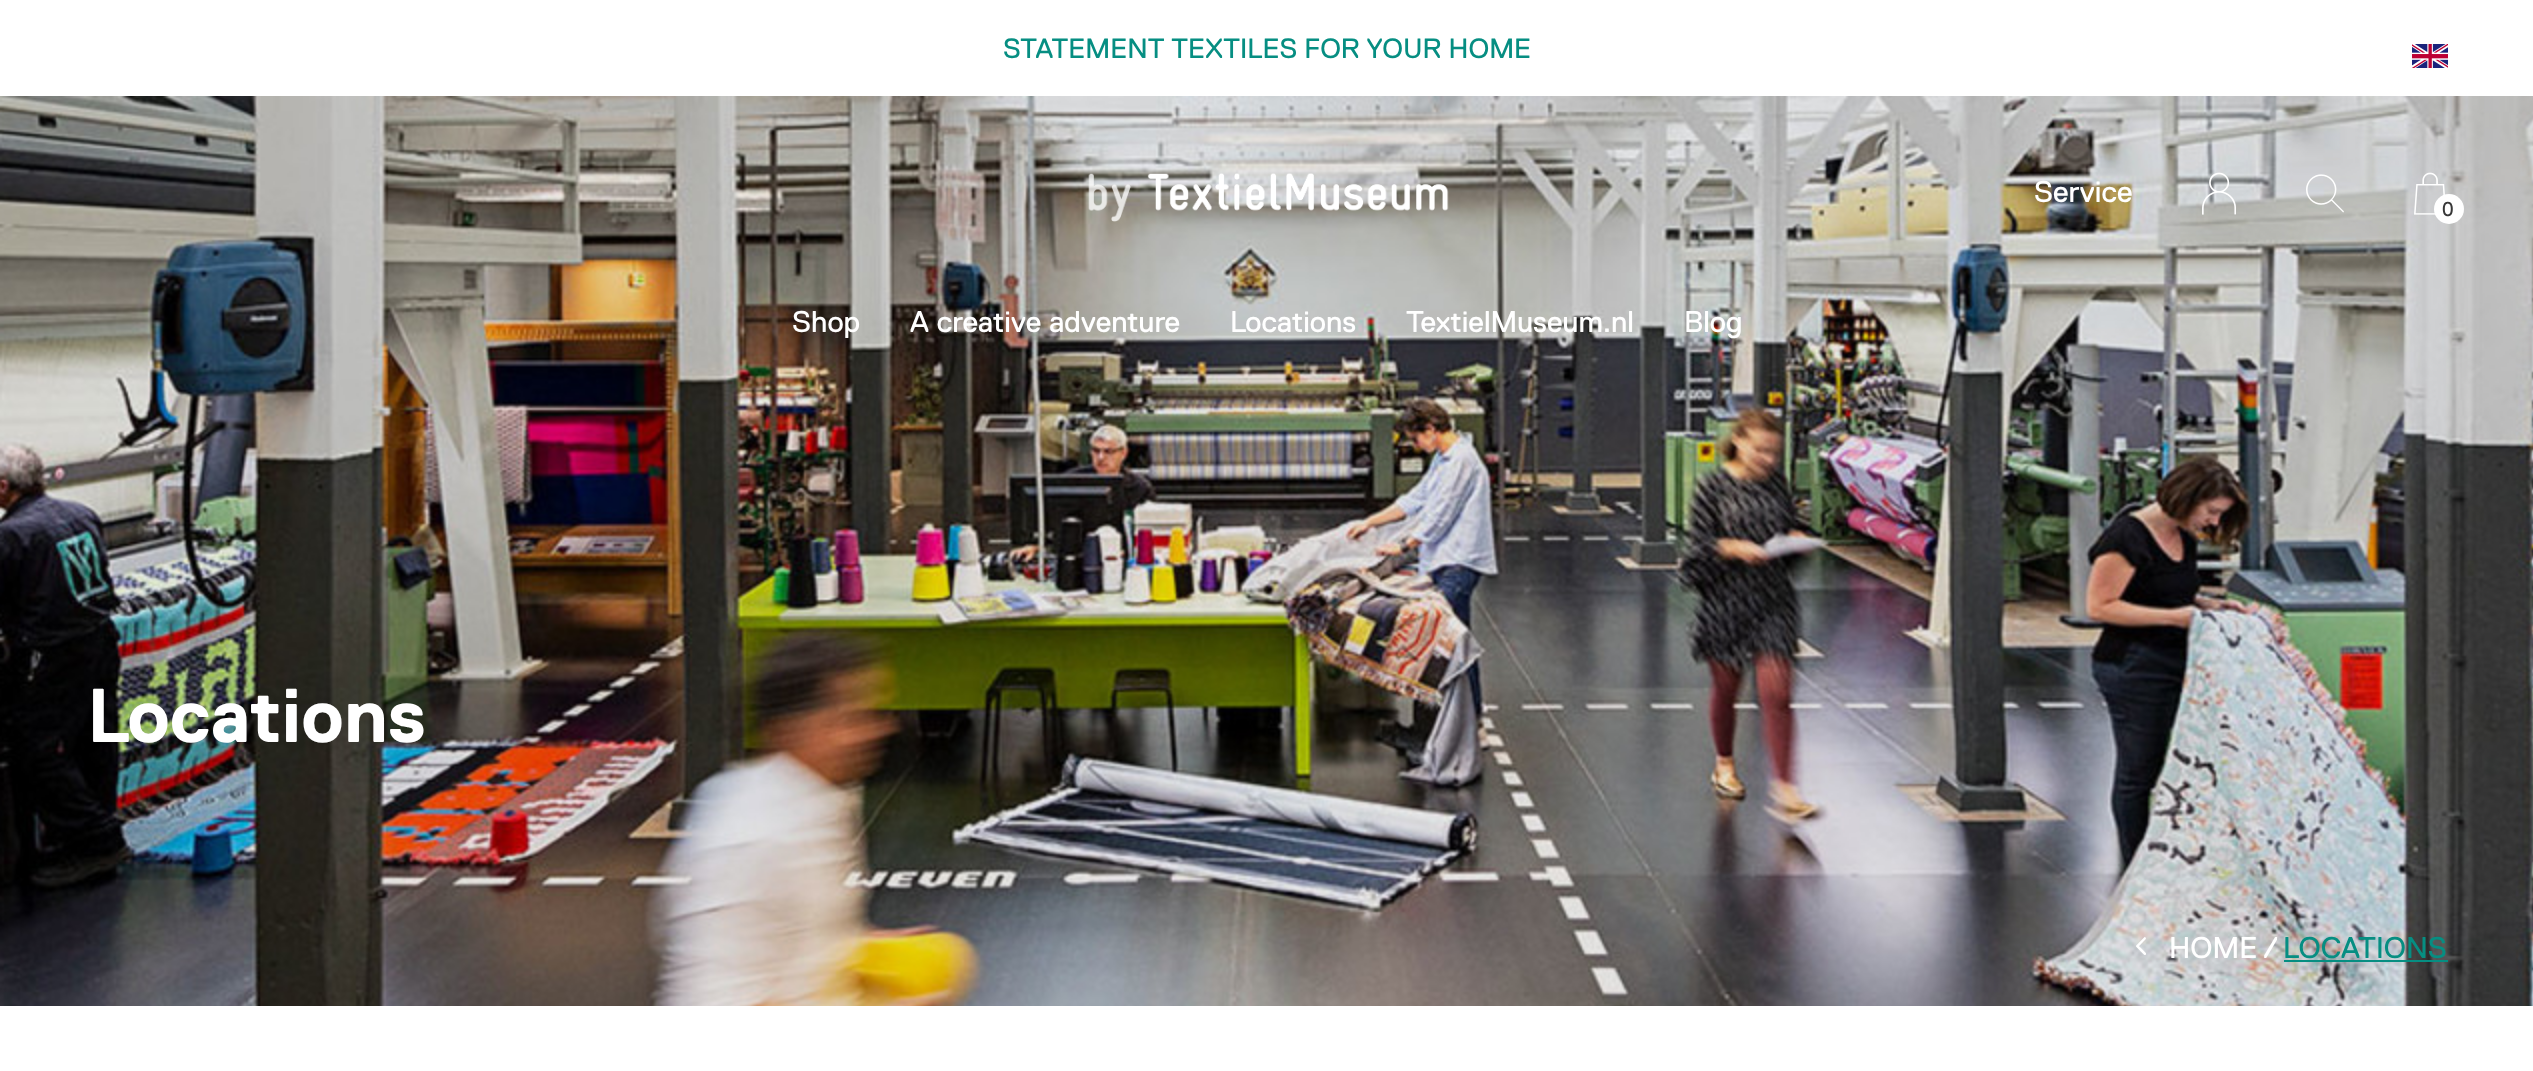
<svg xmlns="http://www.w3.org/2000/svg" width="2533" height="1071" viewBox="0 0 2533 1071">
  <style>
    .t1 { font: 28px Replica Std; fill: #068e82; }
    .t2 { font: 30px Replica Std; fill: #fff; }
    .t3 { font: 20px Replica Std; fill: #383838; }
    .t4 { font: bold 76px Replica Std; fill: #fff; }
    .t5 { font: 30px Replica Std; fill: #068e82; }
  </style>
  <rect width="100%" height="100%" fill="#fff"/>
  <text x="1003" y="58" class="t1">STATEMENT TEXTILES FOR YOUR HOME</text>
  <image x="2412" y="44" width="36" height="24" href="images/1.png"/>
  <image x="0" y="96" width="2533" height="910" href="images/6.png"/>
  <image x="1088" y="173" width="361" height="49" href="images/2.png"/>
  <text x="2034" y="202" class="t2">Service</text>
  <image x="2202" y="172" width="34" height="43" href="images/3.png"/>
  <image x="2306" y="174" width="38" height="39" href="images/4.png"/>
  <image x="2414" y="172" width="31" height="43" href="images/5.png"/>
  <circle cx="2449" cy="209" r="15" fill="#fff"/>
  <text x="2442" y="216" class="t3">0</text>
  <text x="792" y="332" class="t2">Shop</text>
  <text x="910" y="332" class="t2">A creative adventure</text>
  <text x="1230" y="332" class="t2">Locations</text>
  <text x="1406" y="332" class="t2">TextielMuseum.nl</text>
  <text x="1684" y="332" class="t2">Blog</text>
  <text x="87" y="742" class="t4">Locations</text>
  <image x="2136" y="937" width="10" height="18" href="images/7.png"/>
  <text x="2169" y="958" class="t2">HOME</text>
  <text x="2263" y="958" class="t2">/</text>
  <text x="2283" y="958" class="t5">LOCATIONS</text>
  <rect x="2284" y="960" width="164" height="2" fill="#068e82"/>
</svg>
